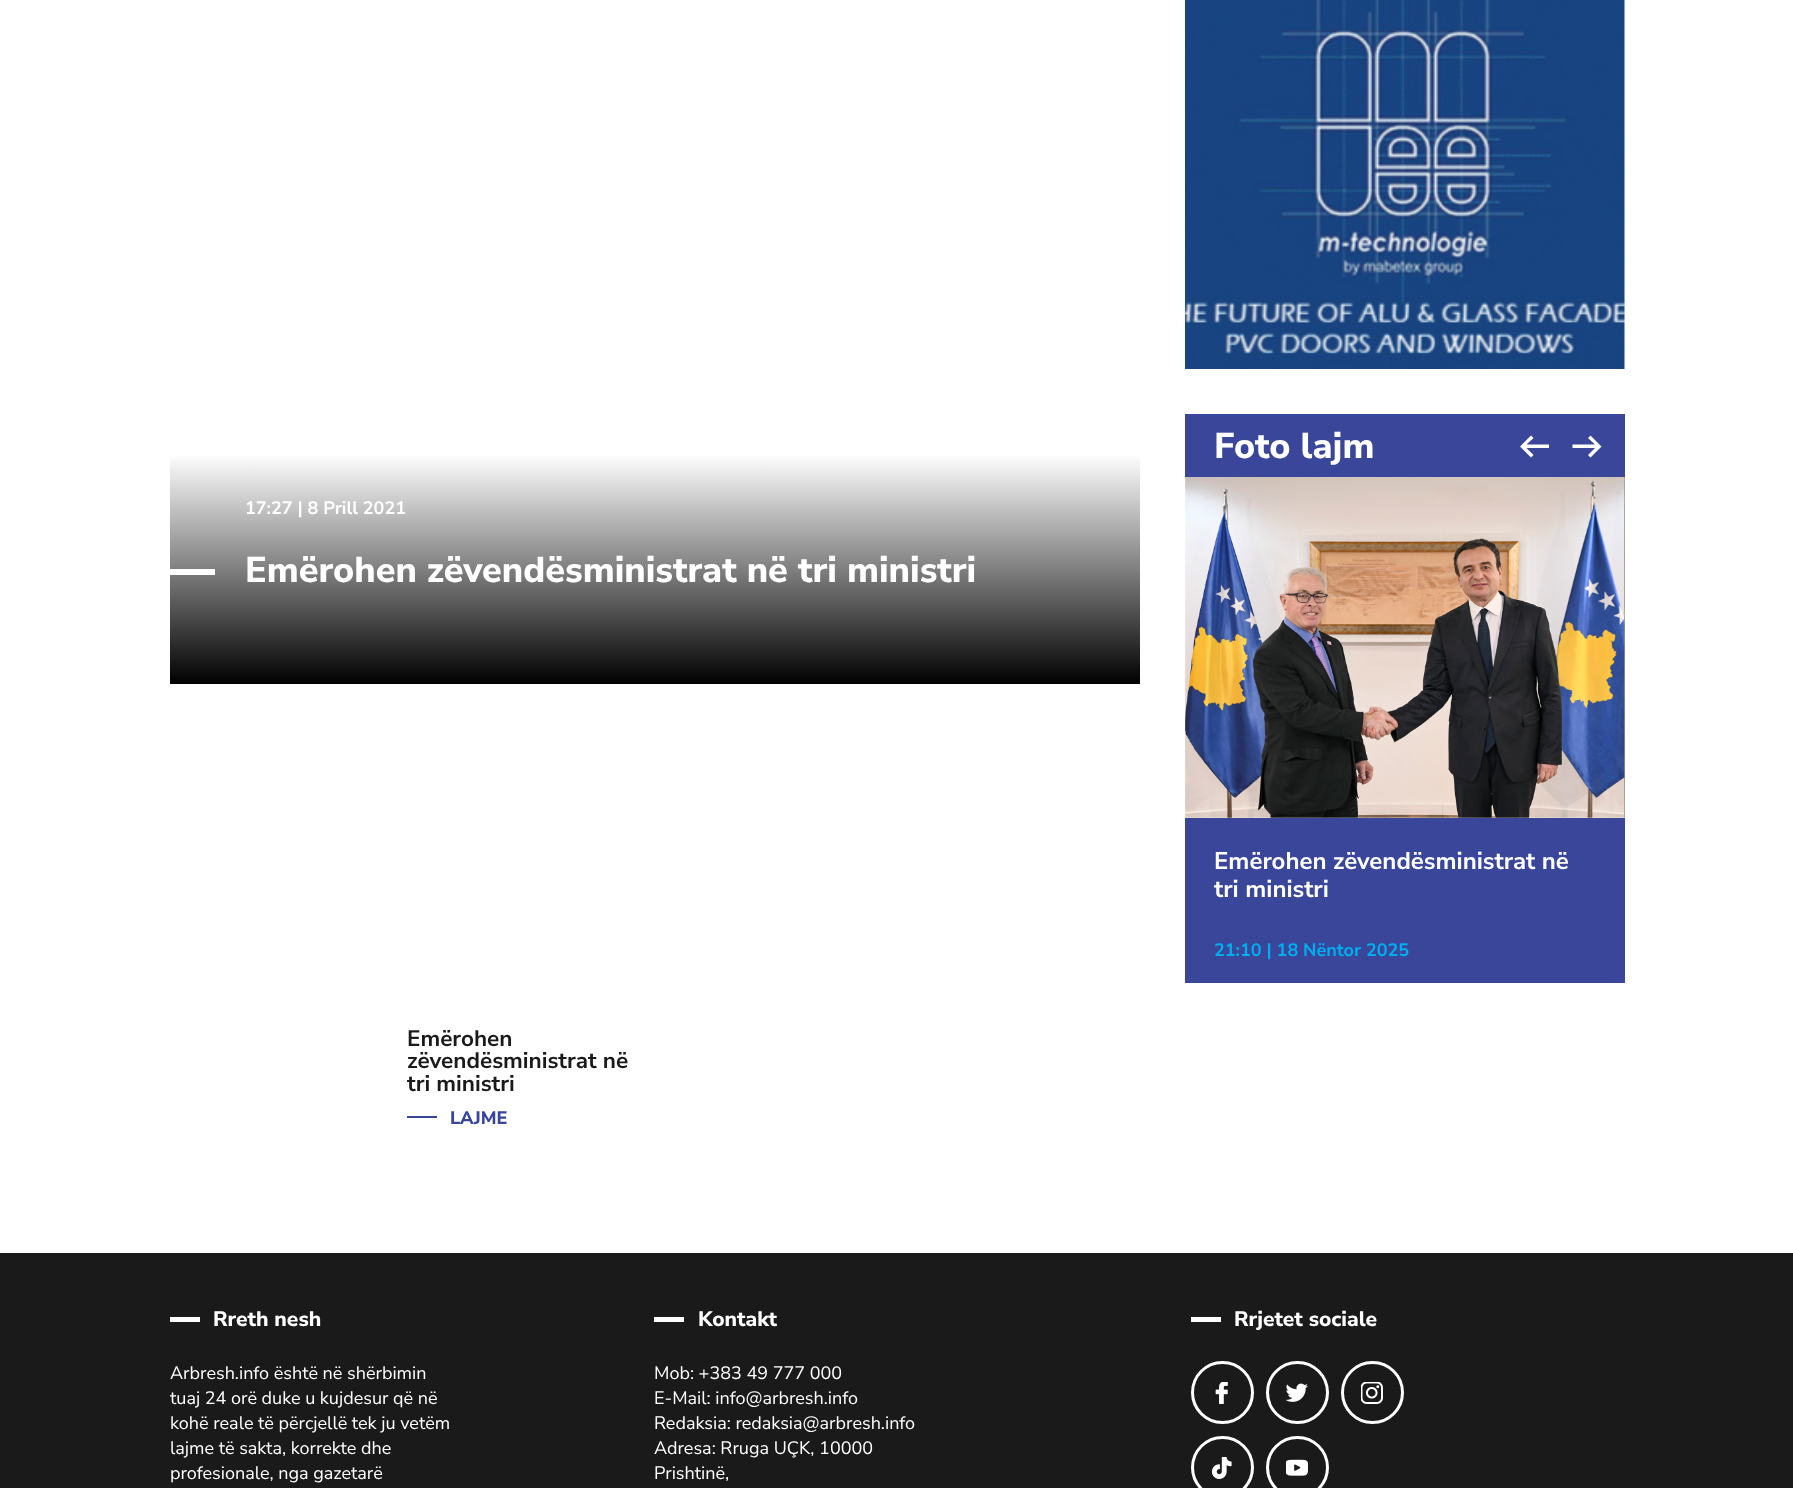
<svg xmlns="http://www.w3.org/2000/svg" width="1793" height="1488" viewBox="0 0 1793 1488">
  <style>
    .t1 { font: bold 18px Nunito Sans; fill: #fff; }
    .t2 { font: 800 36px Nunito Sans; fill: #fff; }
    .t3 { font: bold 24px Nunito Sans; fill: #fff; }
    .t4 { font: bold 18px Nunito Sans; fill: #00afef; }
    .t5 { font: bold 22.5px Nunito Sans; fill: #1a1a1a; }
    .t6 { font: 800 18px Nunito Sans; fill: #3a469a; }
    .t7 { font: 800 21px Nunito Sans; fill: #fff; }
    .t8 { font: 18px Nunito Sans; fill: #fff; }
  </style>
  <defs>
    <linearGradient id="g1" gradientUnits="userSpaceOnUse" x1="655" y1="454" x2="655" y2="684"><stop offset="0" stop-color="#fff"/><stop offset="1" stop-color="#000"/></linearGradient>
  </defs>
  <rect width="100%" height="100%" fill="#fff"/>
  <rect x="170" y="456" width="970" height="228" fill="url(#g1)"/>
  <text x="245" y="514" class="t1">17:27 | 8 Prill 2021</text>
  <rect x="170" y="569" width="45" height="6" fill="#fff"/>
  <text x="245" y="582" class="t2">Emërohen zëvendësministrat në tri ministri</text>
  <image x="1185" y="0" width="440" height="369" href="images/1.png"/>
  <rect x="1185" y="414" width="440" height="63" fill="#3a469a"/>
  <text x="1214" y="458" class="t2">Foto lajm</text>
  <path d="M1549 444.5H1526.5L1533.5 438L1531 435.5L1520 446.5L1531 457.5L1533.5 455L1526.5 448H1549Z" fill="#fff"/>
  <path d="M1572.5 448H1595L1588 455L1590.5 457.5L1601.5 446.5L1590.5 435.5L1588 438L1595 444.5H1572.5Z" fill="#fff"/>
  <image x="1185" y="477" width="440" height="341" href="images/3.png"/>
  <image x="1624" y="477" width="1" height="341" href="images/2.png"/>
  <rect x="1185" y="818" width="440" height="165" fill="#3a469a"/>
  <text x="1214" y="869" class="t3">Emërohen zëvendësministrat në</text>
  <text x="1214" y="897" class="t3">tri ministri</text>
  <text x="1214" y="956" class="t4">21:10 | 18 Nëntor 2025</text>
  <text x="407" y="1046" class="t5">Emërohen</text>
  <text x="407" y="1068" class="t5">zëvendësministrat në</text>
  <text x="407" y="1091" class="t5">tri ministri</text>
  <rect x="407" y="1116" width="30" height="2" fill="#3a469a"/>
  <text x="450" y="1124" class="t6">LAJME</text>
  <rect x="0" y="1253" width="1793" height="235" fill="#1a1a1a"/>
  <rect x="170" y="1317" width="30" height="5" fill="#fff"/>
  <text x="213" y="1326" class="t7">Rreth nesh</text>
  <text x="170" y="1379" class="t8">Arbresh.info është në shërbimin</text>
  <text x="170" y="1404" class="t8">tuaj 24 orë duke u kujdesur që në</text>
  <text x="170" y="1429" class="t8">kohë reale të përcjellë tek ju vetëm</text>
  <text x="170" y="1454" class="t8">lajme të sakta, korrekte dhe</text>
  <text x="170" y="1479" class="t8">profesionale, nga gazetarë</text>
  <rect x="654" y="1317" width="30" height="5" fill="#fff"/>
  <text x="698" y="1326" class="t7">Kontakt</text>
  <text x="654" y="1379" class="t8">Mob: +383 49 777 000</text>
  <text x="654" y="1404" class="t8">E-Mail: info@arbresh.info</text>
  <text x="654" y="1429" class="t8">Redaksia: redaksia@arbresh.info</text>
  <text x="654" y="1454" class="t8">Adresa: Rruga UÇK, 10000</text>
  <text x="654" y="1479" class="t8">Prishtinë,</text>
  <rect x="1191" y="1317" width="30" height="5" fill="#fff"/>
  <text x="1234" y="1326" class="t7">Rrjetet sociale</text>
  <image x="1215" y="1382" width="13" height="22" href="images/4.png"/>
  <circle cx="1222.5" cy="1392.5" r="30" fill="none" stroke="#fff" stroke-width="3"/>
  <image x="1286" y="1383" width="22" height="19" href="images/5.png"/>
  <circle cx="1297.5" cy="1392.5" r="30" fill="none" stroke="#fff" stroke-width="3"/>
  <image x="1361" y="1382" width="22" height="22" href="images/6.png"/>
  <circle cx="1372.5" cy="1392.5" r="30" fill="none" stroke="#fff" stroke-width="3"/>
  <image x="1211" y="1457" width="21" height="22" href="images/7.png"/>
  <circle cx="1222.5" cy="1467.5" r="30" fill="none" stroke="#fff" stroke-width="3"/>
  <image x="1286" y="1459" width="22" height="17" href="images/8.png"/>
  <circle cx="1297.5" cy="1467.5" r="30" fill="none" stroke="#fff" stroke-width="3"/>
</svg>
